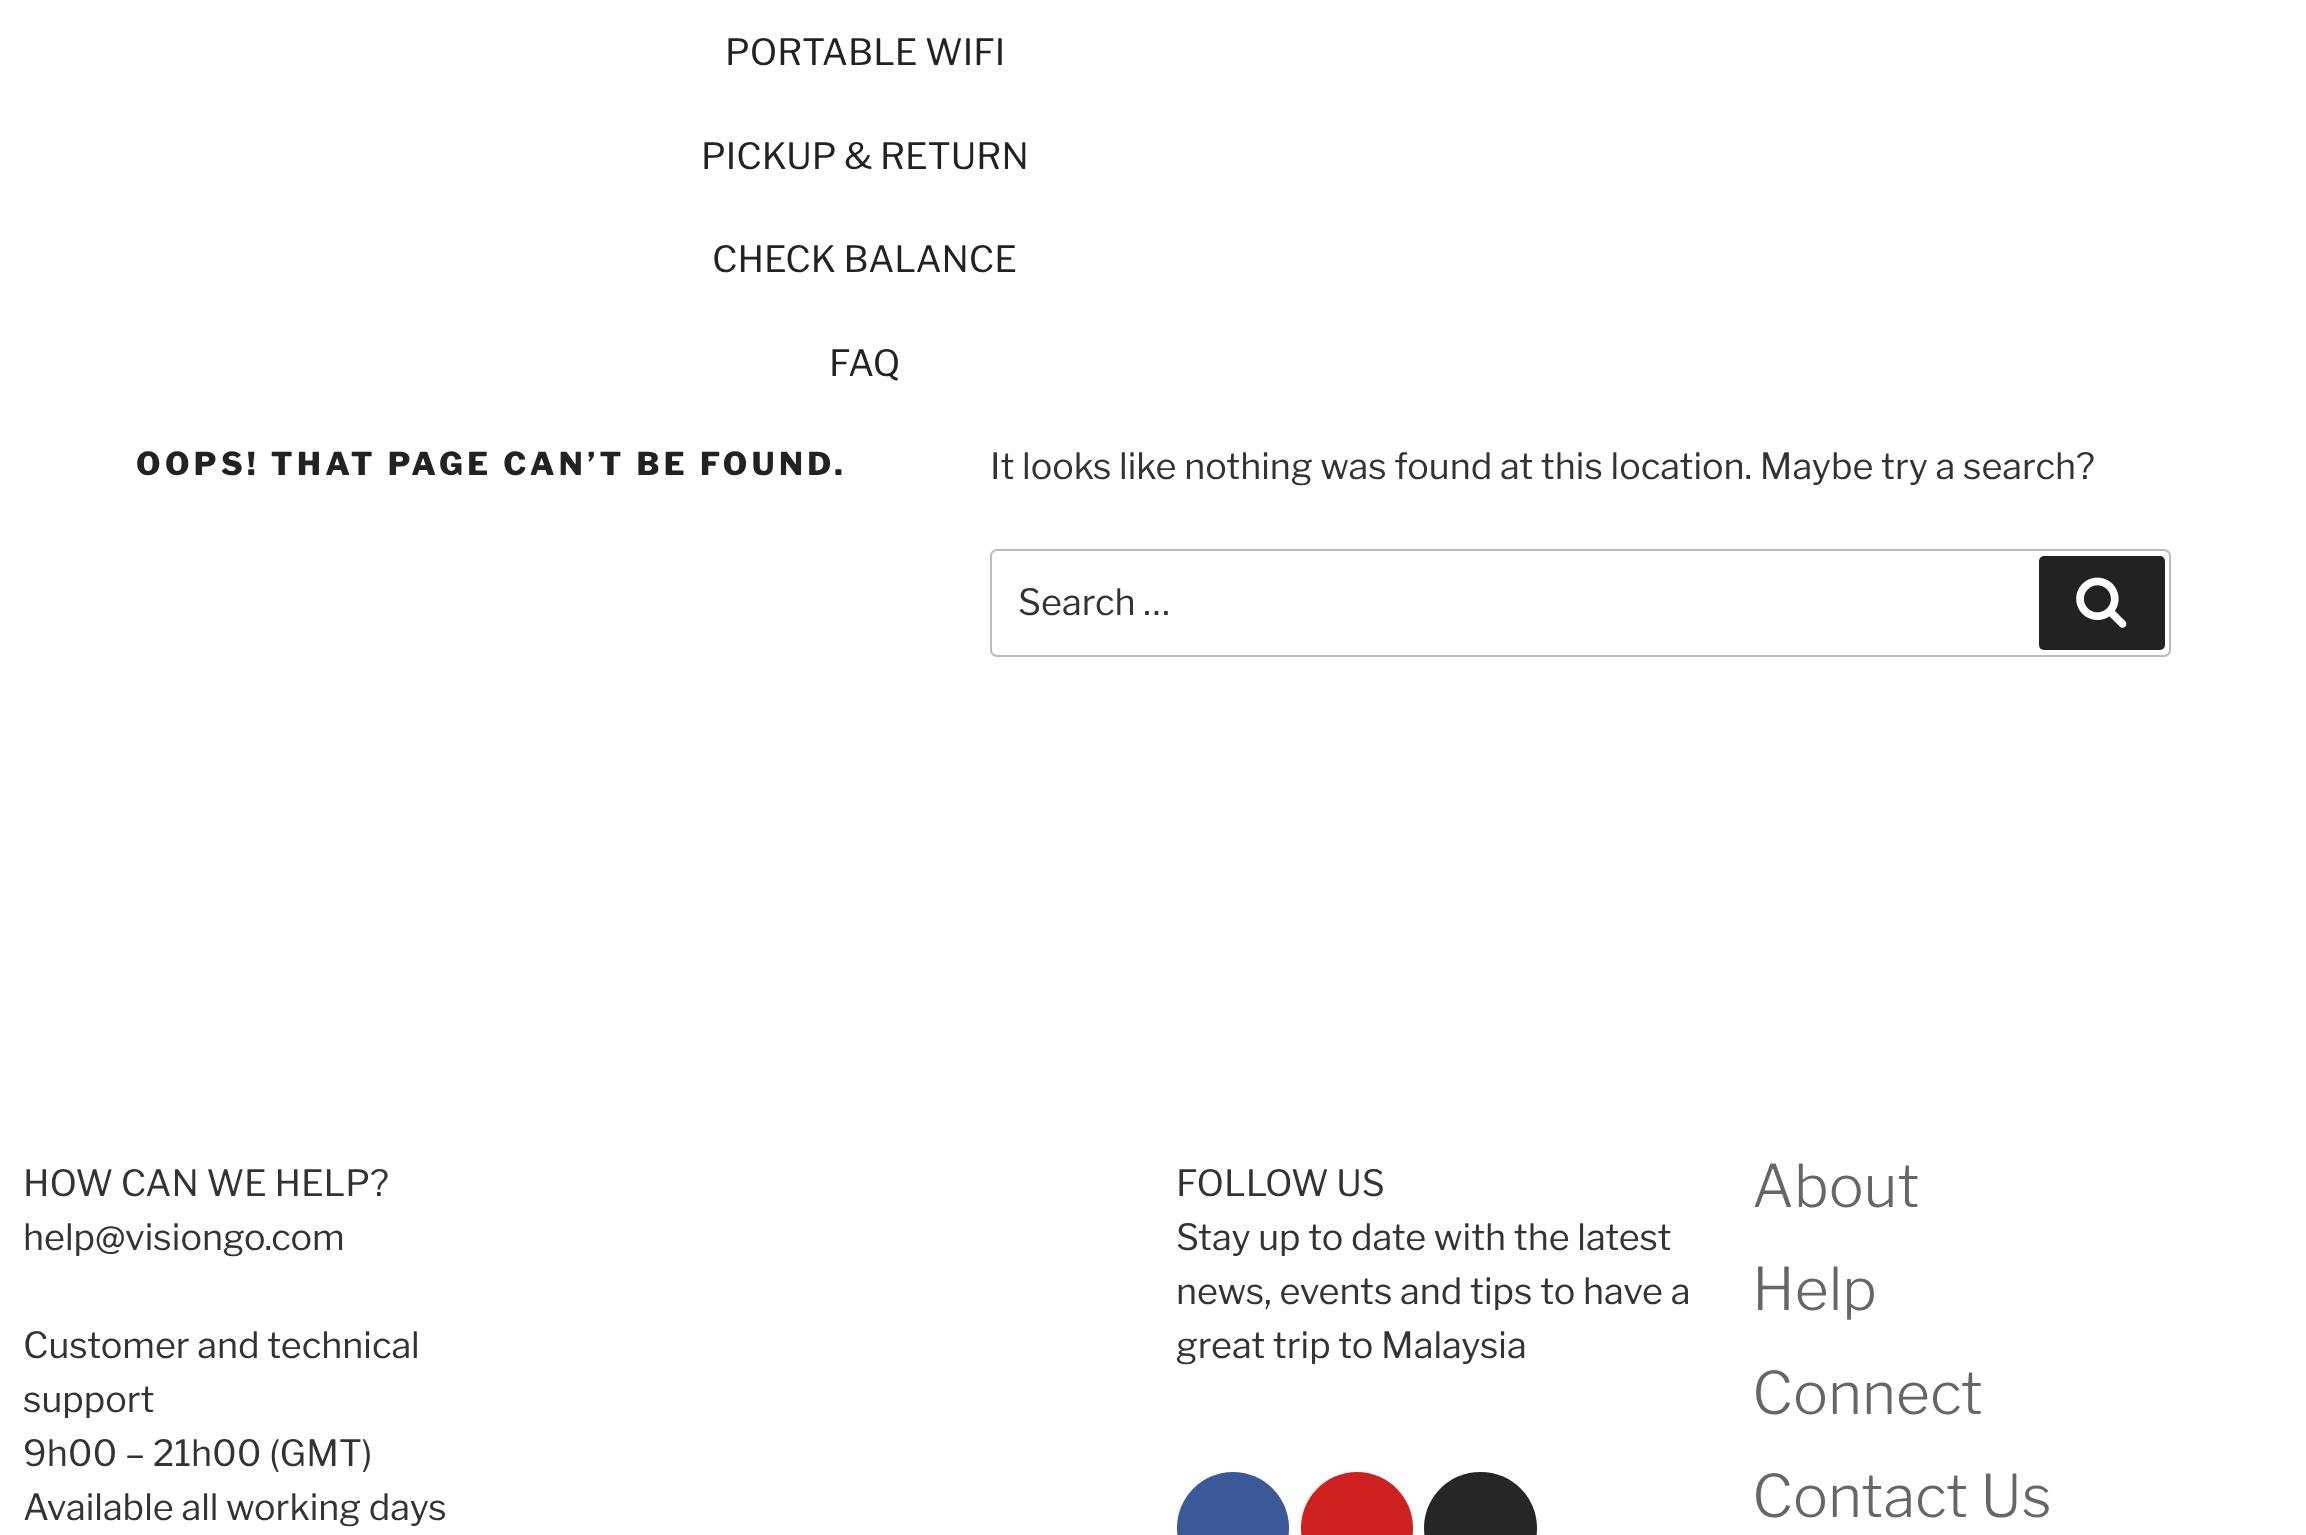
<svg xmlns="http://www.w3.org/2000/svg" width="2306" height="1535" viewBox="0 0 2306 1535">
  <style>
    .t1 { font: 36px Libre Franklin; fill: #222; }
    .t2 { font: 800 31.5px Libre Franklin; letter-spacing: 4.4px; fill: #222; }
    .t3 { font: 36px Libre Franklin; fill: #333; }
    .t4 { font: 300 58.5px Libre Franklin; fill: #666; }
  </style>
  <rect width="100%" height="100%" fill="#fff"/>
  <text x="725" y="65" class="t1">PORTABLE WIFI</text>
  <text x="701" y="169" class="t1">PICKUP &amp; RETURN</text>
  <text x="712" y="272" class="t1">CHECK BALANCE</text>
  <text x="829" y="376" class="t1">FAQ</text>
  <text x="136" y="475" class="t2">OOPS! THAT PAGE CAN’T BE FOUND.</text>
  <text x="990" y="479" class="t3">It looks like nothing was found at this location. Maybe try a search?</text>
  <rect x="991" y="550" width="1179" height="106" rx="6" fill="none" stroke="#bbb" stroke-width="2"/>
  <text x="1018" y="615" class="t3">Search …</text>
  <rect x="2039" y="556" width="126" height="94" rx="5" fill="#222"/>
  <image x="2076" y="577" width="51" height="51" href="images/1.png"/>
  <text x="23" y="1196" class="t3">HOW CAN WE HELP?</text>
  <text x="23" y="1250" class="t3">help@visiongo.com</text>
  <text x="23" y="1358" class="t3">Customer and technical</text>
  <text x="23" y="1412" class="t3">support</text>
  <text x="23" y="1466" class="t3">9h00 – 21h00 (GMT)</text>
  <text x="23" y="1520" class="t3">Available all working days</text>
  <text x="1176" y="1196" class="t3">FOLLOW US</text>
  <text x="1176" y="1250" class="t3">Stay up to date with the latest</text>
  <text x="1176" y="1304" class="t3">news, events and tips to have a</text>
  <text x="1176" y="1358" class="t3">great trip to Malaysia</text>
  <circle cx="1233" cy="1528" r="56" fill="#3b5998"/>
  <circle cx="1357" cy="1528" r="56" fill="#cd201f"/>
  <rect x="1424" y="1472" width="113" height="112" rx="56" fill="#262626"/>
  <text x="1752" y="1207" class="t4">About</text>
  <text x="1752" y="1310" class="t4">Help</text>
  <text x="1752" y="1414" class="t4">Connect</text>
  <text x="1752" y="1517" class="t4">Contact Us</text>
</svg>
